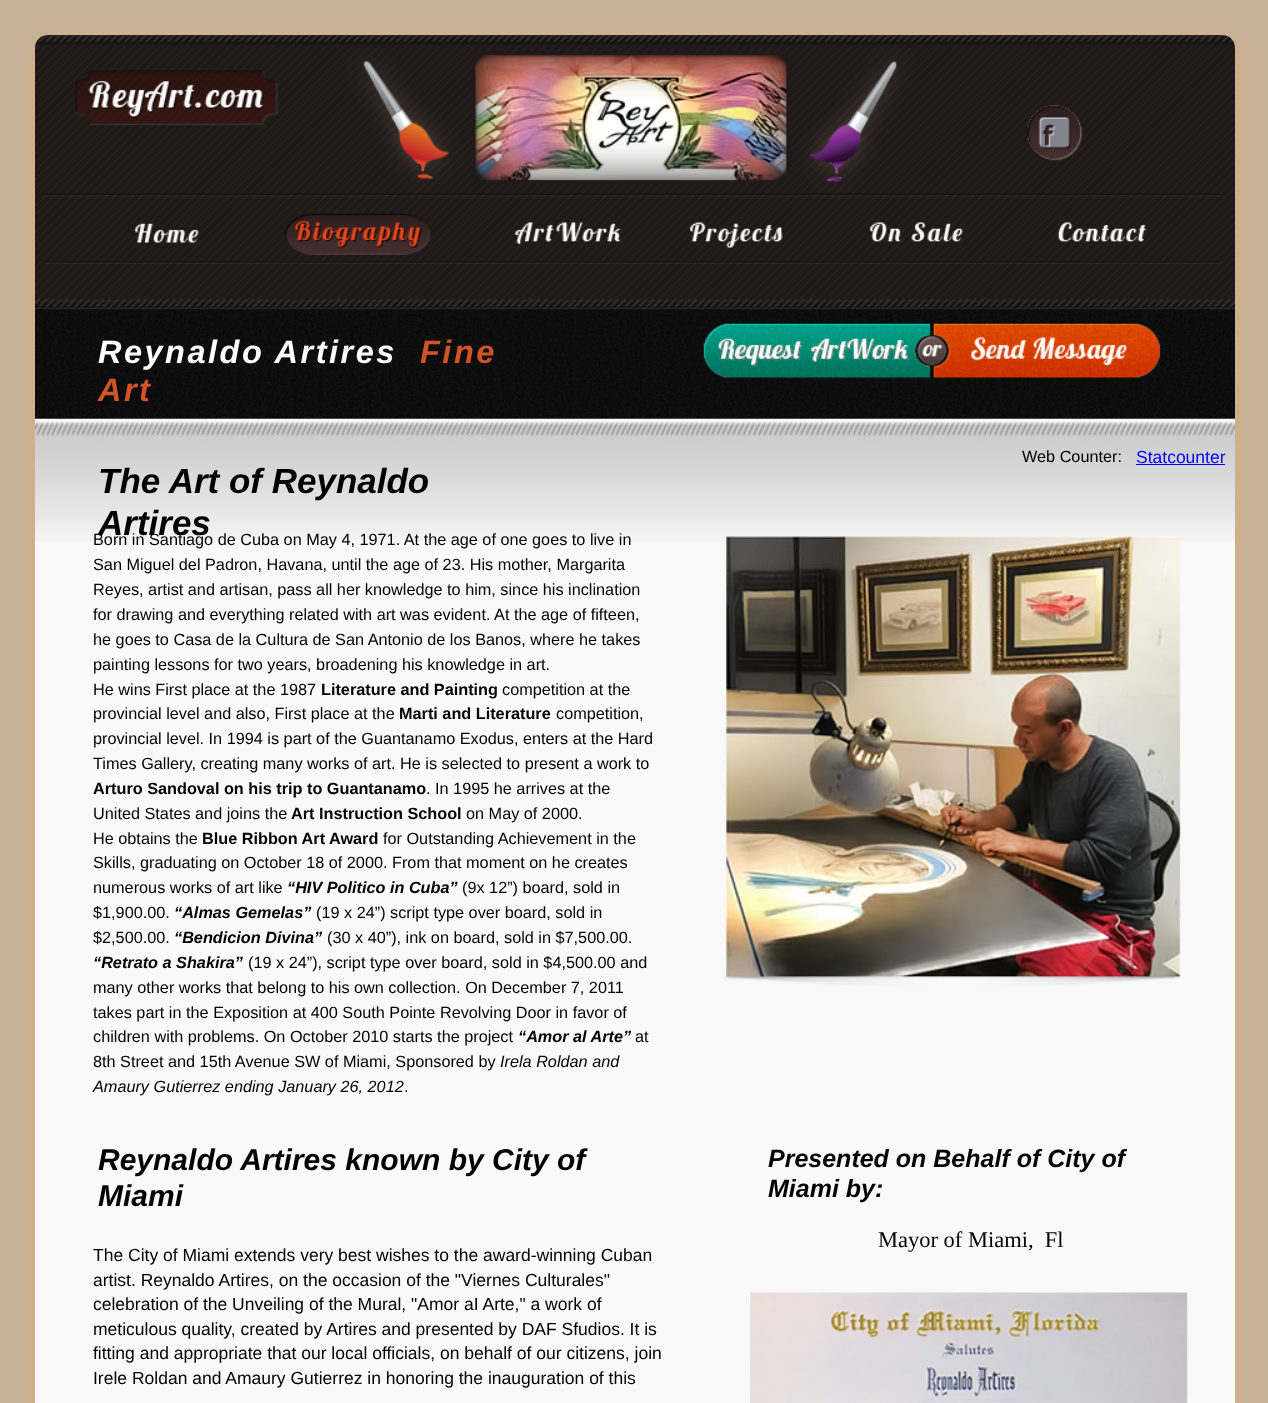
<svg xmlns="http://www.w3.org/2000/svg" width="1268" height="1403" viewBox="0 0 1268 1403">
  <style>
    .t1 { font: italic bold 32.5px Liberation Sans; letter-spacing: 2.5px; fill: #fff; }
    .t2 { font: italic bold 32.5px Liberation Sans; letter-spacing: 2.5px; fill: #d35328; }
    .t3 { font: 16.25px Liberation Sans; fill: #000; }
    .t4 { font: 17.5px Liberation Sans; fill: #00f; }
    .t5 { font: italic bold 35px Liberation Sans; fill: #000; }
    .t6 { font: bold 16.25px Liberation Sans; fill: #000; }
    .t7 { font: italic bold 16.25px Liberation Sans; fill: #000; }
    .t8 { font: italic 16.25px Liberation Sans; fill: #000; }
    .t9 { font: italic bold 30px Liberation Sans; fill: #000; }
    .t10 { font: italic bold 25px Liberation Sans; fill: #000; }
    .t11 { font: 22.5px Liberation Serif; fill: #000; }
    .t12 { font: 17.5px Liberation Sans; fill: #000; }
  </style>
  <rect width="100%" height="100%" fill="#c7b299"/>
  <rect x="35" y="40" width="1200" height="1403" rx="13" fill="#f6a8506b" filter="blur(9px)"/>
  <rect x="35" y="35" width="1200" height="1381" rx="13" fill="#f9f9f9"/>
  <image x="35" y="35" width="1200" height="274" href="images/1.png"/>
  <image x="75" y="70" width="203" height="55" href="images/2.png"/>
  <image x="134" y="223" width="65" height="20" href="images/3.png"/>
  <image x="285" y="213" width="145" height="42" href="images/4.png"/>
  <image x="514" y="222" width="108" height="22" href="images/5.png"/>
  <image x="689" y="222" width="94" height="26" href="images/6.png"/>
  <image x="869" y="222" width="94" height="20" href="images/7.png"/>
  <image x="1027" y="105" width="56" height="56" href="images/8.png"/>
  <image x="1057" y="222" width="90" height="20" href="images/9.png"/>
  <image x="35" y="308" width="1200" height="111" href="images/10.png"/>
  <text x="98" y="363" class="t1">Reynaldo Artires</text>
  <text x="420" y="363" class="t2">Fine</text>
  <text x="98" y="401" class="t2">Art</text>
  <image x="703" y="323" width="458" height="55" href="images/11.png"/>
  <image x="718" y="338" width="192" height="29" href="images/12.png"/>
  <image x="971" y="337" width="156" height="29" href="images/13.png"/>
  <image x="35" y="421" width="1200" height="120" href="images/14.png"/>
  <text x="1022" y="462" class="t3">Web Counter:</text>
  <text x="1136" y="463" class="t4">Statcounter</text>
  <rect x="1136" y="464" width="89" height="1" fill="#00f"/>
  <text x="98" y="493" class="t5">The Art of Reynaldo</text>
  <text x="98" y="535" class="t5">Artires</text>
  <text x="93" y="545" class="t3">Born in Santiago de Cuba on May 4, 1971. At the age of one goes to live in</text>
  <text x="93" y="570" class="t3">San Miguel del Padron, Havana, until the age of 23. His mother, Margarita</text>
  <text x="93" y="595" class="t3">Reyes, artist and artisan, pass all her knowledge to him, since his inclination</text>
  <text x="93" y="620" class="t3">for drawing and everything related with art was evident. At the age of fifteen,</text>
  <text x="93" y="645" class="t3">he goes to Casa de la Cultura de San Antonio de los Banos, where he takes</text>
  <text x="93" y="670" class="t3">painting lessons for two years, broadening his knowledge in art.</text>
  <text x="93" y="695" class="t3">He wins First place at the 1987</text>
  <text x="321" y="695" class="t6">Literature and Painting</text>
  <text x="502" y="695" class="t3">competition at the</text>
  <text x="93" y="719" class="t3">provincial level and also, First place at the</text>
  <text x="399" y="719" class="t6">Marti and Literature</text>
  <text x="556" y="719" class="t3">competition,</text>
  <text x="93" y="744" class="t3">provincial level. In 1994 is part of the Guantanamo Exodus, enters at the Hard</text>
  <text x="93" y="769" class="t3">Times Gallery, creating many works of art. He is selected to present a work to</text>
  <text x="93" y="794" class="t6">Arturo Sandoval on his trip to Guantanamo</text>
  <text x="426" y="794" class="t3">. In 1995 he arrives at the</text>
  <text x="93" y="819" class="t3">United States and joins the</text>
  <text x="291" y="819" class="t6">Art Instruction School</text>
  <text x="466" y="819" class="t3">on May of 2000.</text>
  <text x="93" y="844" class="t3">He obtains the</text>
  <text x="202" y="844" class="t6">Blue Ribbon Art Award</text>
  <text x="383" y="844" class="t3">for Outstanding Achievement in the</text>
  <text x="93" y="868" class="t3">Skills, graduating on October 18 of 2000. From that moment on he creates</text>
  <text x="93" y="893" class="t3">numerous works of art like</text>
  <text x="287" y="893" class="t7">“HIV Politico in Cuba”</text>
  <text x="462" y="893" class="t3">(9x 12”) board, sold in</text>
  <text x="93" y="918" class="t3">$1,900.00.</text>
  <text x="174" y="918" class="t7">“Almas Gemelas”</text>
  <text x="316" y="918" class="t3">(19 x 24”) script type over board, sold in</text>
  <text x="93" y="943" class="t3">$2,500.00.</text>
  <text x="174" y="943" class="t7">“Bendicion Divina”</text>
  <text x="327" y="943" class="t3">(30 x 40”), ink on board, sold in $7,500.00.</text>
  <text x="93" y="968" class="t7">“Retrato a Shakira”</text>
  <text x="248" y="968" class="t3">(19 x 24”), script type over board, sold in $4,500.00 and</text>
  <text x="93" y="993" class="t3">many other works that belong to his own collection. On December 7, 2011</text>
  <text x="93" y="1018" class="t3">takes part in the Exposition at 400 South Pointe Revolving Door in favor of</text>
  <text x="93" y="1042" class="t3">children with problems. On October 2010 starts the project</text>
  <text x="518" y="1042" class="t7">“Amor al Arte”</text>
  <text x="635" y="1042" class="t3">at</text>
  <text x="93" y="1067" class="t3">8th Street and 15th Avenue SW of Miami, Sponsored by</text>
  <text x="500" y="1067" class="t8">Irela Roldan and</text>
  <text x="93" y="1092" class="t8">Amaury Gutierrez ending January 26, 2012</text>
  <text x="404" y="1092" class="t3">.</text>
  <image x="724" y="536" width="457" height="450" href="images/15.png"/>
  <text x="98" y="1170" class="t9">Reynaldo Artires known by City of</text>
  <text x="98" y="1206" class="t9">Miami</text>
  <text x="768" y="1167" class="t10">Presented on Behalf of City of</text>
  <text x="768" y="1197" class="t10">Miami by:</text>
  <text x="878" y="1247" class="t11" xml:space="preserve">Mayor of Miami,  Fl</text>
  <text x="93" y="1261" class="t12">The City of Miami extends very best wishes to the award-winning Cuban</text>
  <text x="93" y="1286" class="t12">artist. Reynaldo Artires, on the occasion of the "Viernes Culturales"</text>
  <text x="93" y="1310" class="t12">celebration of the Unveiling of the Mural, "Amor aI Arte," a work of</text>
  <text x="93" y="1335" class="t12">meticulous quality, created by Artires and presented by DAF Sfudios. It is</text>
  <text x="93" y="1359" class="t12">fitting and appropriate that our local officials, on behalf of our citizens, join</text>
  <text x="93" y="1384" class="t12">Irele Roldan and Amaury Gutierrez in honoring the inauguration of this</text>
  <image x="750" y="1292" width="438" height="111" href="images/16.png"/>
</svg>
